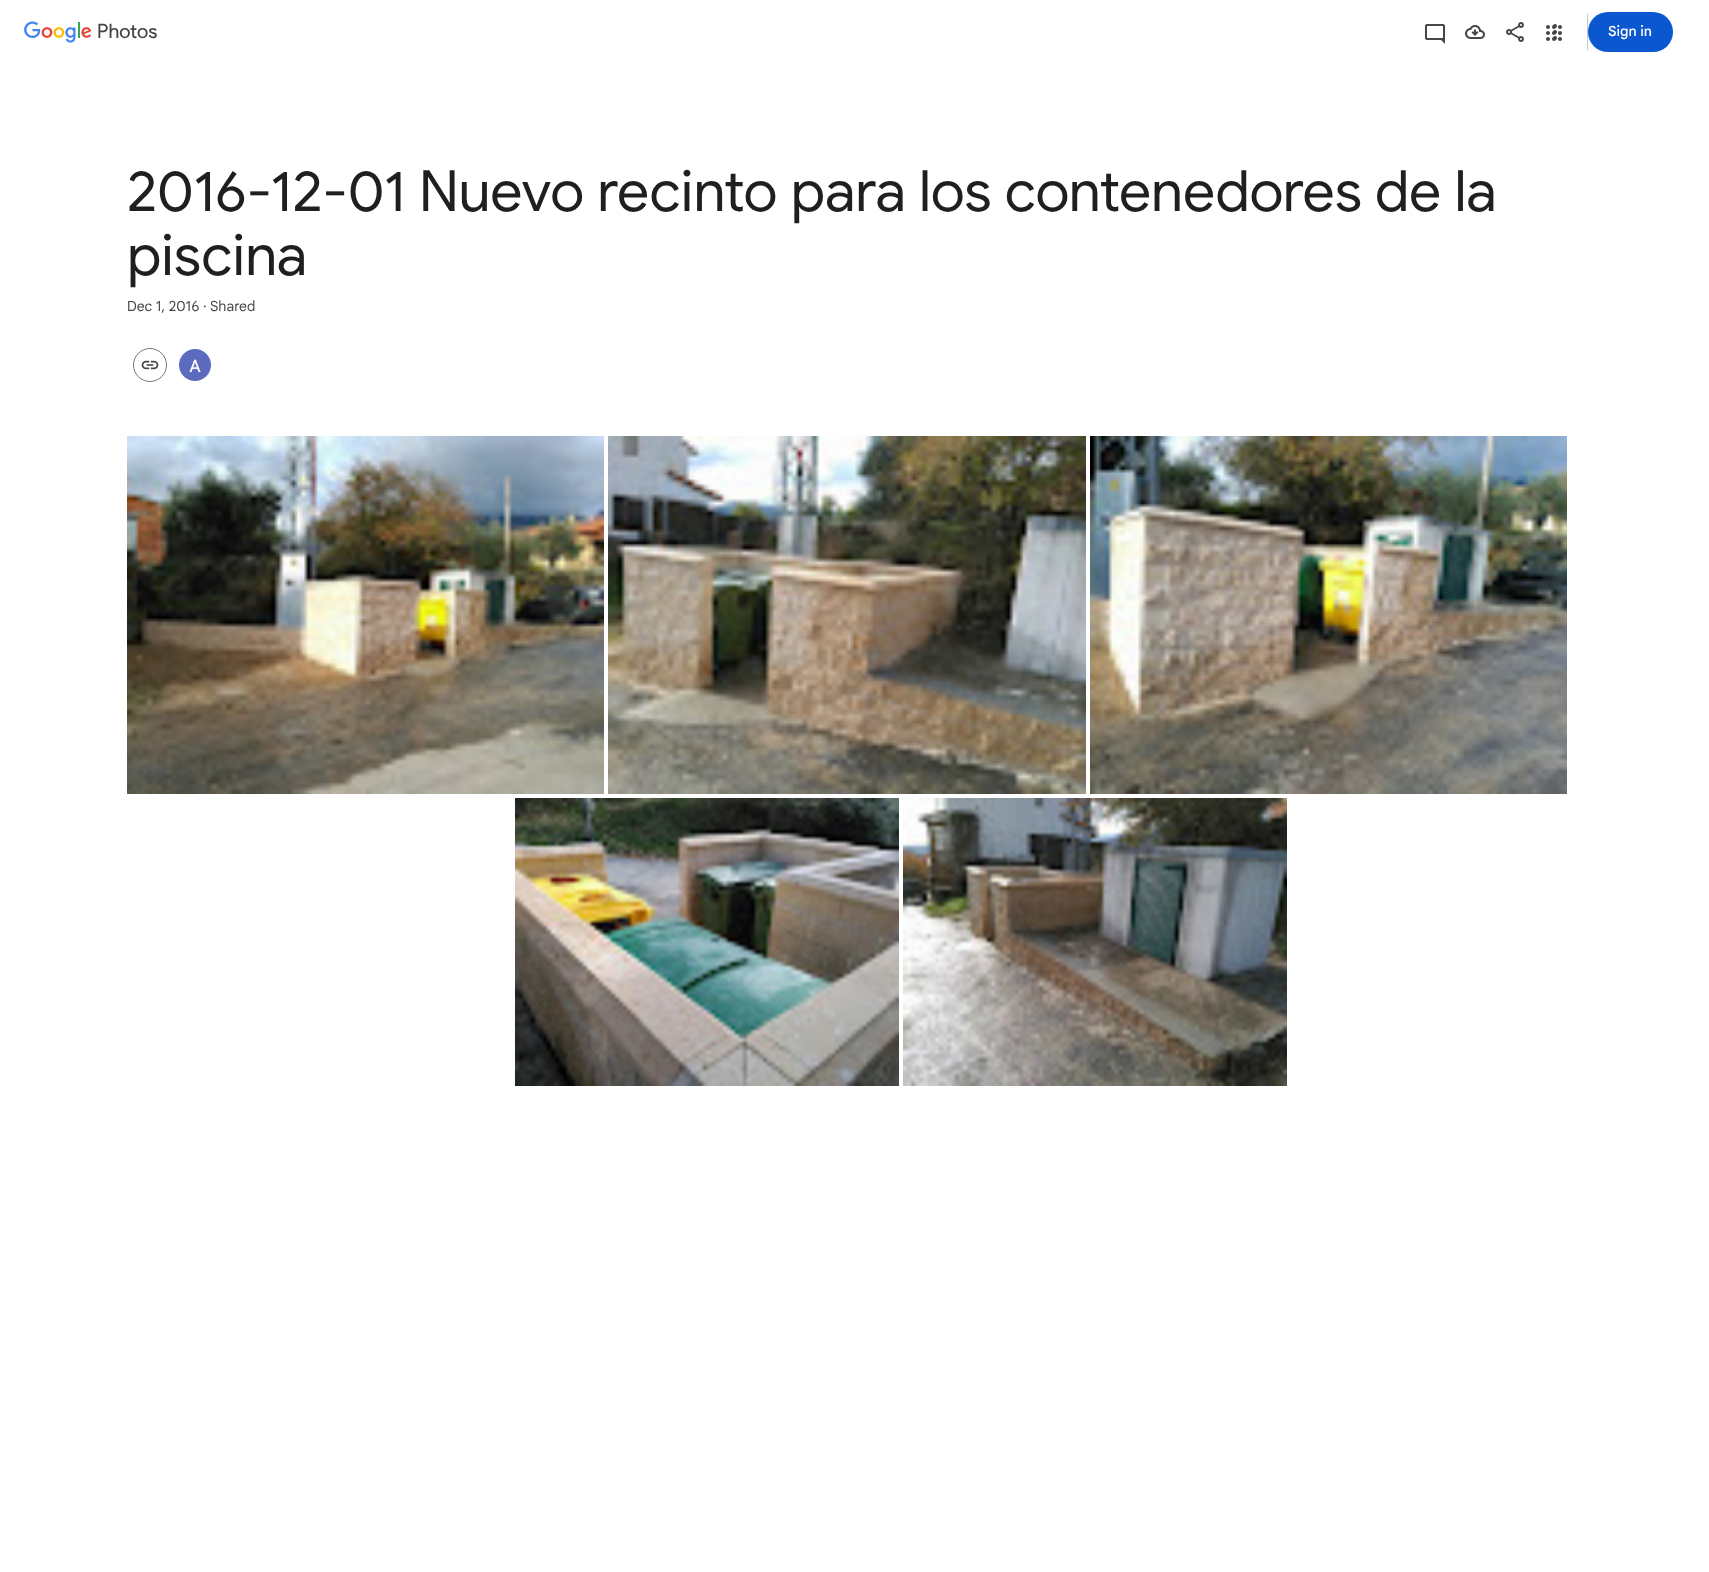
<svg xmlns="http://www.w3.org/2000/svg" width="1709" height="1572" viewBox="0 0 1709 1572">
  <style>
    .t1 { font: 20px Product Sans; fill: #444746; }
    .t2 { font: 57px Google Sans; fill: #1f1f1f; }
    .t3 { font: 14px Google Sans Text; fill: #444746; }
    .t4 { font: 500 14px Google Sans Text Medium; fill: #fff; }
  </style>
  <rect width="100%" height="100%" fill="#fff"/>
  <image x="24" y="21" width="68" height="22" href="images/1.png"/>
  <text x="97" y="38" class="t1">Photos</text>
  <image x="1425" y="24" width="20" height="20" href="images/2.png"/>
  <image x="1465" y="25" width="20" height="14" href="images/3.png"/>
  <image x="1506" y="22" width="18" height="20" href="images/4.png"/>
  <image x="1553" y="24" width="4" height="16" href="images/5.png"/>
  <rect x="1587" y="14" width="1" height="36" fill="#c4c7c5"/>
  <text x="127" y="211" class="t2">2016-12-01 Nuevo recinto para los contenedores de la</text>
  <text x="127" y="275" class="t2">piscina</text>
  <text x="127" y="311" class="t3">Dec 1, 2016 · Shared</text>
  <circle cx="150" cy="365" r="16.5" fill="none" stroke="#747775"/>
  <image x="141" y="360" width="18" height="10" href="images/6.png"/>
  <image x="179" y="349" width="32" height="32" href="images/7.png"/>
  <image x="127" y="436" width="477" height="358" href="images/8.png"/>
  <image x="608" y="436" width="478" height="358" href="images/9.png"/>
  <image x="1090" y="436" width="477" height="358" href="images/10.png"/>
  <image x="515" y="798" width="384" height="288" href="images/11.png"/>
  <image x="903" y="798" width="384" height="288" href="images/12.png"/>
  <image x="1546" y="25" width="16" height="16" href="images/13.png"/>
  <rect x="1588" y="12" width="85" height="40" rx="20" fill="#0b57d0"/>
  <text x="1608" y="36" class="t4">Sign in</text>
</svg>
